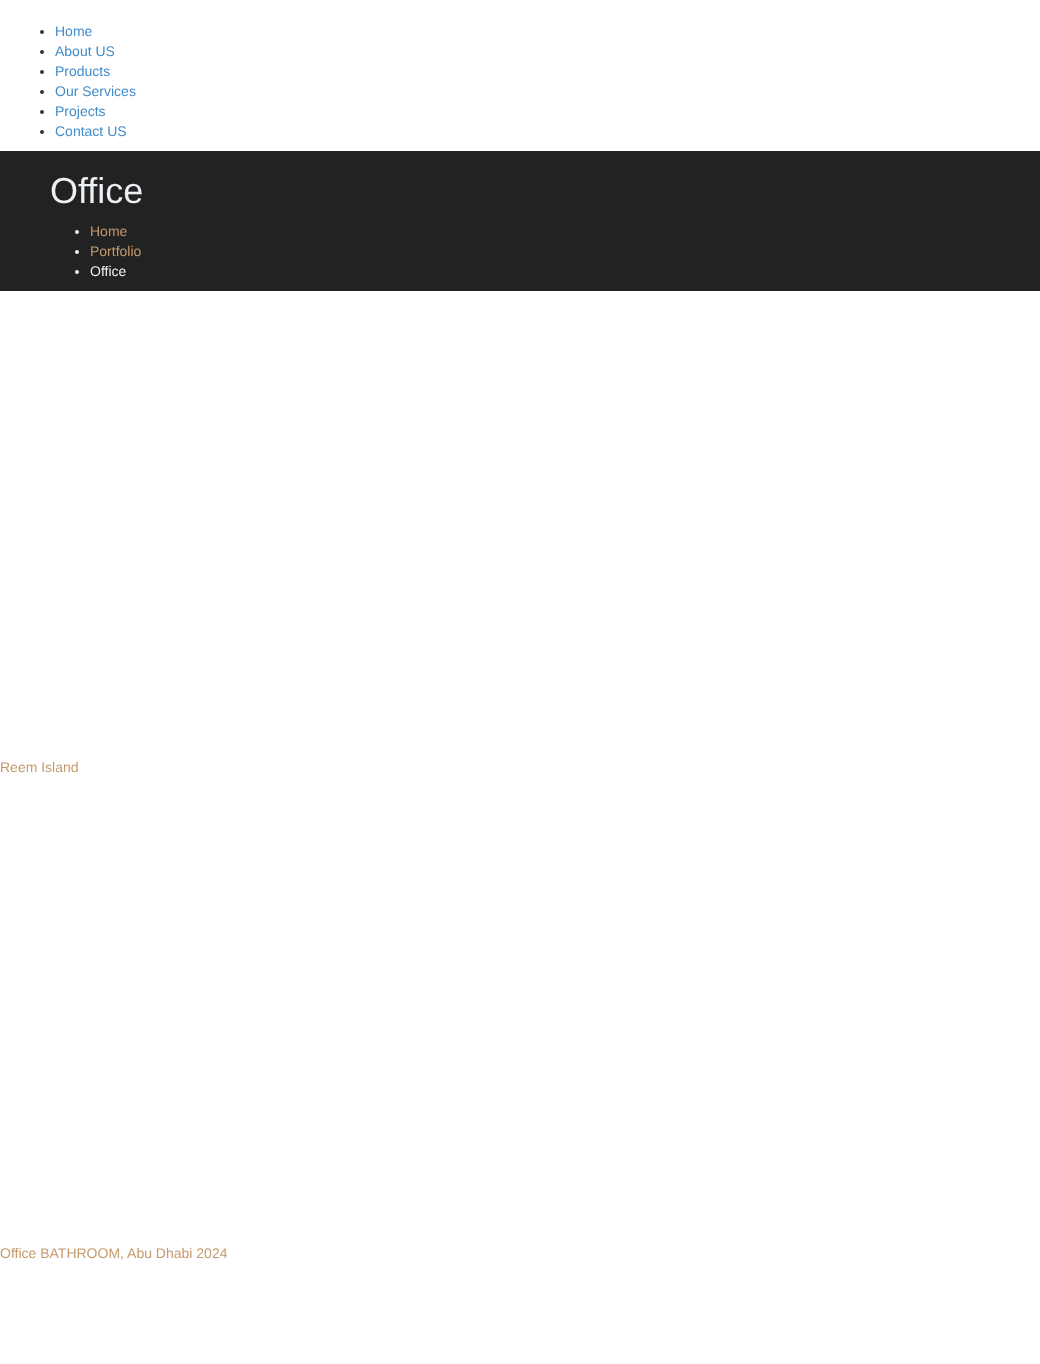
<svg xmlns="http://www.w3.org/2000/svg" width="1040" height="1364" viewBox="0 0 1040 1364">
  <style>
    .t1 { font: 14px Liberation Sans; fill: #428bca; }
    .t2 { font: 36px Liberation Sans; fill: #eceff3; }
    .t3 { font: 14px Liberation Sans; fill: #c49a6c; }
    .t4 { font: 14px Liberation Sans; fill: #eceff3; }
  </style>
  <rect width="100%" height="100%" fill="#fff"/>
  <circle cx="42" cy="32" r="2" fill="#333"/>
  <text x="55" y="36" class="t1">Home</text>
  <circle cx="42" cy="52" r="2" fill="#333"/>
  <text x="55" y="56" class="t1">About US</text>
  <circle cx="42" cy="72" r="2" fill="#333"/>
  <text x="55" y="76" class="t1">Products</text>
  <circle cx="42" cy="92" r="2" fill="#333"/>
  <text x="55" y="96" class="t1">Our Services</text>
  <circle cx="42" cy="112" r="2" fill="#333"/>
  <text x="55" y="116" class="t1">Projects</text>
  <circle cx="42" cy="132" r="2" fill="#333"/>
  <text x="55" y="136" class="t1">Contact US</text>
  <rect x="0" y="151" width="1040" height="140" fill="#222"/>
  <text x="50" y="203" class="t2">Office</text>
  <circle cx="77" cy="232" r="2" fill="#eceff3"/>
  <text x="90" y="236" class="t3">Home</text>
  <circle cx="77" cy="252" r="2" fill="#eceff3"/>
  <text x="90" y="256" class="t3">Portfolio</text>
  <circle cx="77" cy="272" r="2" fill="#eceff3"/>
  <text x="90" y="276" class="t4">Office</text>
  <text x="0" y="772" class="t3">Reem Island</text>
  <text x="0" y="1258" class="t3">Office BATHROOM, Abu Dhabi 2024</text>
</svg>
